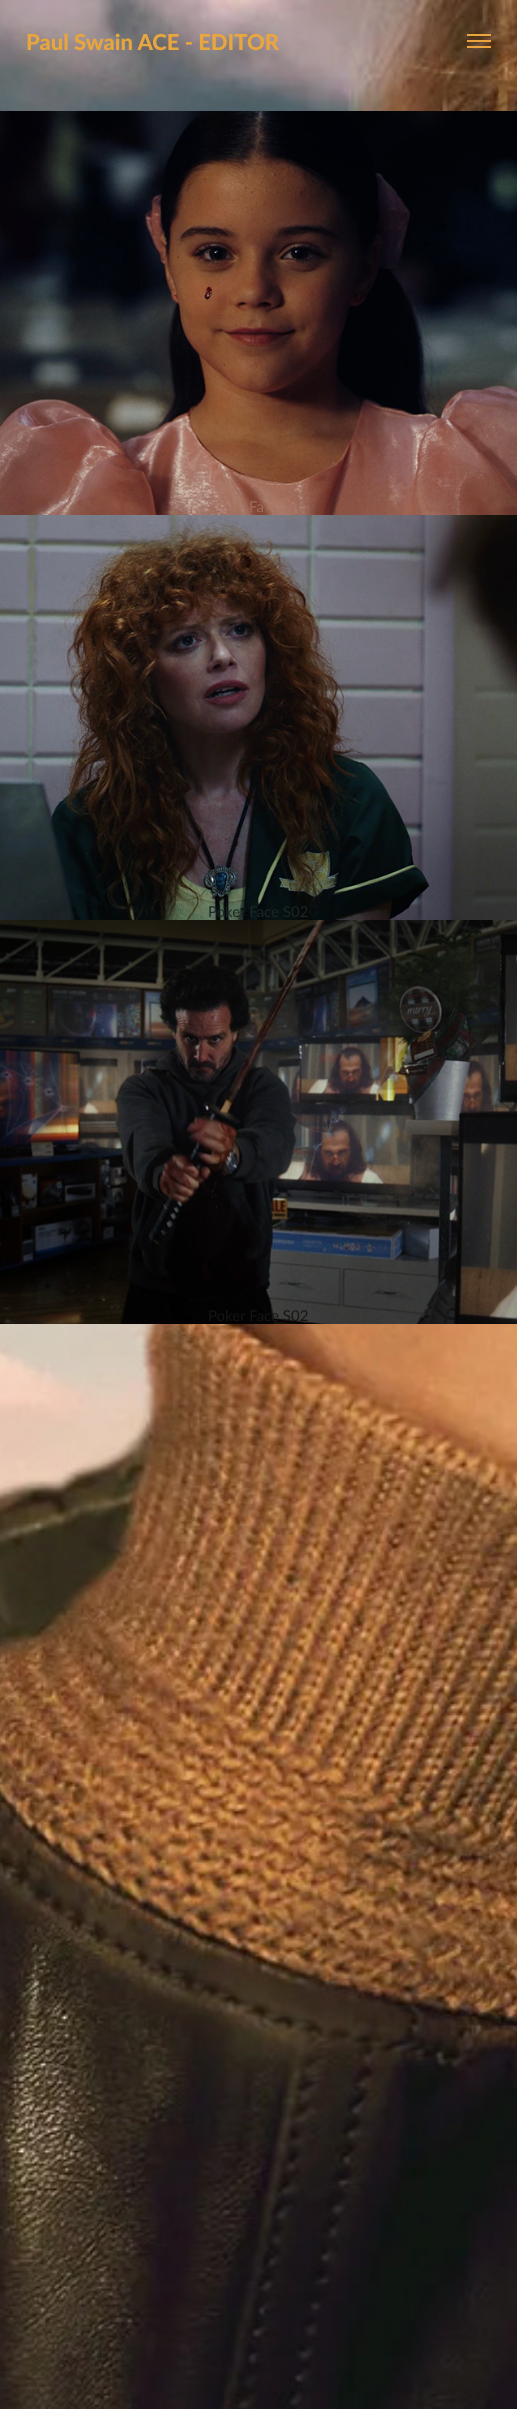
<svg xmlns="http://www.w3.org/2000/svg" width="517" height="2409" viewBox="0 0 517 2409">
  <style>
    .t1 { font: 900 22px Lato; fill: #e9a63e; }
    .t2 { font: 15px Lato; fill: #9f6c5c; }
    .t3 { font: 15px Lato; fill: #1b2723; }
    .t4 { font: 15px Lato; fill: #151515; }
  </style>
  <rect width="100%" height="100%" fill="#fff"/>
  <image x="0" y="0" width="517" height="2409" href="images/1.png"/>
  <text x="26" y="50" class="t1">Paul Swain ACE - EDITOR</text>
  <rect x="467" y="34" width="24" height="2" fill="#e9a63e"/>
  <rect x="467" y="40" width="24" height="2" fill="#e9a63e"/>
  <rect x="467" y="46" width="24" height="2" fill="#e9a63e"/>
  <image x="0" y="111" width="517" height="404" href="images/2.png"/>
  <text x="249" y="512" class="t2">Fa</text>
  <image x="0" y="515" width="517" height="405" href="images/3.png"/>
  <text x="208" y="917" class="t3">Poker Face S02</text>
  <image x="0" y="920" width="517" height="404" href="images/4.png"/>
  <text x="208" y="1321" class="t4">Poker Face S02</text>
</svg>
